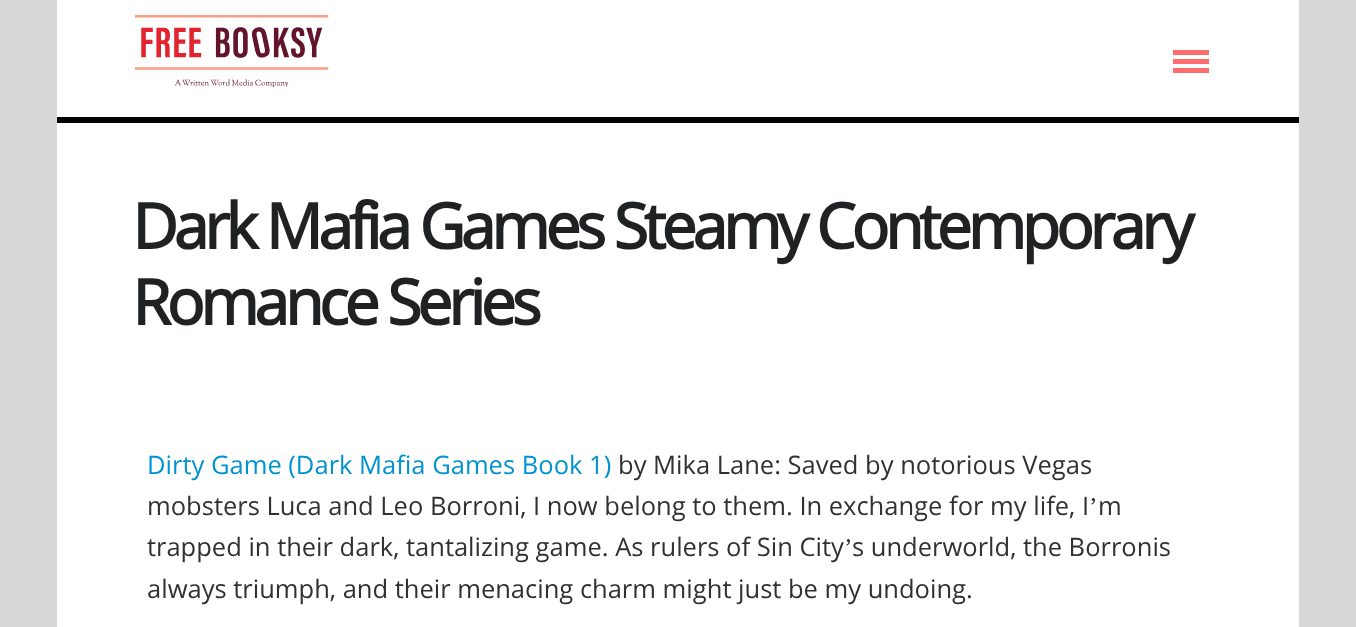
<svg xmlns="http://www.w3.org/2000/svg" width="1356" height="627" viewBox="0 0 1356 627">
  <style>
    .t1 { font: bold 63px Open Sans; letter-spacing: -4.5px; fill: #1f2123; }
    .t2 { font: 25.5px Open Sans; fill: #0093d0; }
    .t3 { font: 25.5px Open Sans; fill: #313131; }
    .t4 { font: 25.5px Liberation Serif; fill: #313131; }
  </style>
  <rect width="100%" height="100%" fill="#d8d8d8"/>
  <rect x="57" y="0" width="1242" height="627" fill="#fff"/>
  <rect x="57" y="117" width="1242" height="6" fill="#000"/>
  <image x="135" y="15" width="194" height="72" href="images/1.png"/>
  <rect x="1173" y="50" width="36" height="5" fill="#ff6c6d"/>
  <rect x="1173" y="59" width="36" height="5" fill="#ff6c6d"/>
  <rect x="1173" y="68" width="36" height="5" fill="#ff6c6d"/>
  <text x="132" y="249" class="t1">Dark Mafia Games Steamy Contemporary</text>
  <text x="132" y="325" class="t1">Romance Series</text>
  <text x="147" y="474" class="t2">Dirty Game (Dark Mafia Games Book 1)</text>
  <text x="618" y="474" class="t3">by Mika Lane: Saved by notorious Vegas</text>
  <text x="147" y="515" class="t3">mobsters Luca and Leo Borroni, I now belong to them. In exchange for my life, I</text>
  <text x="1089" y="515" class="t4">’</text>
  <text x="1098" y="515" class="t3">m</text>
  <text x="147" y="556" class="t3">trapped in their dark, tantalizing game. As rulers of Sin City</text>
  <text x="844" y="556" class="t4">’</text>
  <text x="852" y="556" class="t3">s underworld, the Borronis</text>
  <text x="147" y="598" class="t3">always triumph, and their menacing charm might just be my undoing.</text>
</svg>
